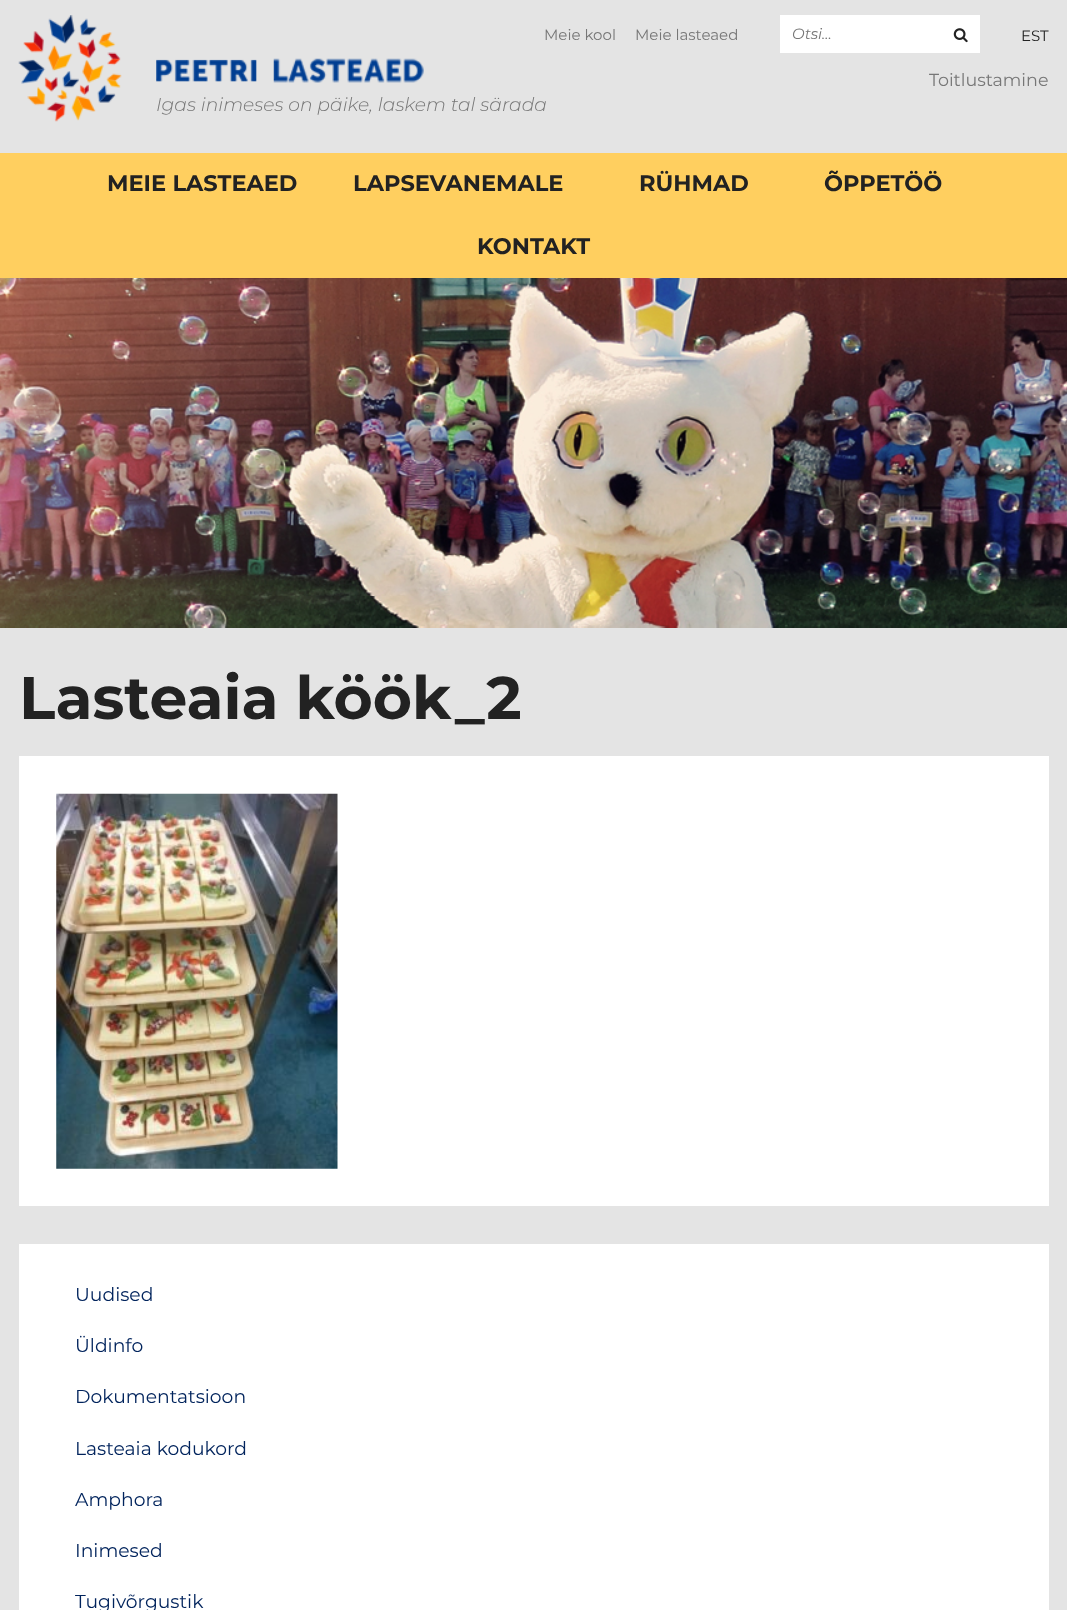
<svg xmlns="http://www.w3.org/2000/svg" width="1067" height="1610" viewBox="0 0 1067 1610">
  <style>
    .t1 { font: 15px Montserrat; fill: #777; }
    .t2 { font: italic 15px Montserrat; fill: #777; }
    .t3 { font: 15px Montserrat; fill: #222; }
    .t4 { font: 17.5px Montserrat; fill: #777; }
    .t5 { font: italic 300 18.75px Montserrat; fill: #777; }
    .t6 { font: bold 22.5px Montserrat; fill: #222; }
    .t7 { font: bold 60px Montserrat; fill: #222; }
    .t8 { font: 18.75px Montserrat; fill: #00235c; }
  </style>
  <rect width="100%" height="100%" fill="#e4e4e4"/>
  <text x="544" y="40" class="t1">Meie kool</text>
  <text x="635" y="40" class="t1">Meie lasteaed</text>
  <rect x="780" y="15" width="200" height="38" fill="#fff"/>
  <text x="792" y="39" class="t2">Otsi...</text>
  <image x="953" y="28" width="15" height="15" href="images/1.png"/>
  <text x="1021" y="41" class="t3">EST</text>
  <text x="929" y="86" class="t4">Toitlustamine</text>
  <image x="18" y="15" width="104" height="107" href="images/2.png"/>
  <image x="156" y="58" width="268" height="25" href="images/3.png"/>
  <text x="156" y="111" class="t5">Igas inimeses on päike, laskem tal särada</text>
  <rect x="0" y="153" width="1067" height="125" fill="#ffcf5f"/>
  <text x="107" y="191" class="t6">MEIE LASTEAED</text>
  <text x="353" y="191" class="t6">LAPSEVANEMALE</text>
  <text x="639" y="191" class="t6">RÜHMAD</text>
  <text x="824" y="191" class="t6">ÕPPETÖÖ</text>
  <text x="477" y="254" class="t6">KONTAKT</text>
  <image x="0" y="278" width="1067" height="350" href="images/4.png"/>
  <text x="19" y="719" class="t7">Lasteaia köök_2</text>
  <rect x="19" y="756" width="1030" height="450" fill="#fff"/>
  <image x="56" y="793" width="282" height="376" href="images/5.png"/>
  <rect x="19" y="1244" width="1030" height="366" fill="#fff"/>
  <text x="75" y="1301" class="t8">Uudised</text>
  <text x="75" y="1352" class="t8">Üldinfo</text>
  <text x="75" y="1403" class="t8">Dokumentatsioon</text>
  <text x="75" y="1455" class="t8">Lasteaia kodukord</text>
  <text x="75" y="1506" class="t8">Amphora</text>
  <text x="75" y="1557" class="t8">Inimesed</text>
  <text x="75" y="1608" class="t8">Tugivõrgustik</text>
</svg>
